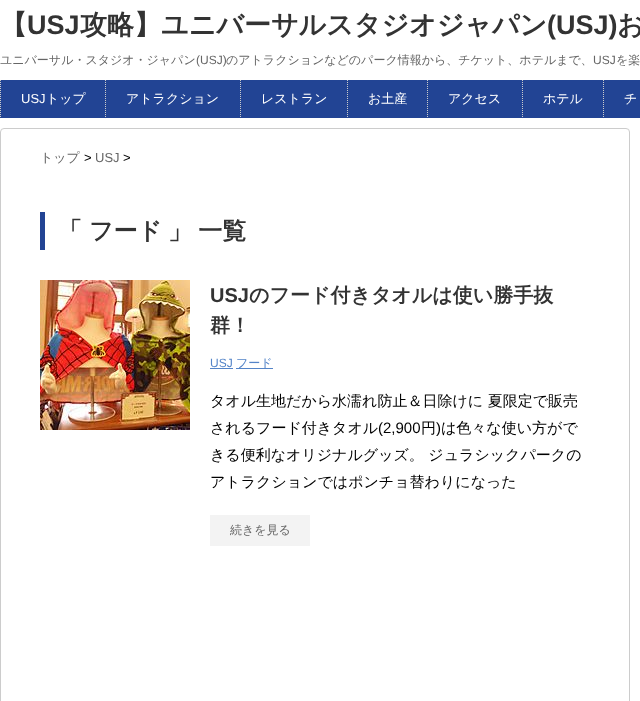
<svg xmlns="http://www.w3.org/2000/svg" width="640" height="701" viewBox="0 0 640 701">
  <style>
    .t1 { font: bold 27px WenQuanYi Zen Hei; fill: #333; }
    .t2 { font: bold 27px Liberation Sans; fill: #333; }
    .t3 { font: 500 12px WenQuanYi Zen Hei; fill: #666; }
    .t4 { font: 12px Liberation Sans; fill: #666; }
    .t5 { font: 13px Liberation Sans; fill: #fff; }
    .t6 { font: 500 13px WenQuanYi Zen Hei; fill: #fff; }
    .t7 { font: 500 13px WenQuanYi Zen Hei; fill: #666; }
    .t8 { font: 13px Liberation Sans; fill: #000; }
    .t9 { font: 13px Liberation Sans; fill: #666; }
    .t10 { font: bold 24px WenQuanYi Zen Hei; fill: #333; }
    .t11 { font: bold 20px Liberation Sans; fill: #333; }
    .t12 { font: bold 20px WenQuanYi Zen Hei; fill: #333; }
    .t13 { font: 12px Liberation Sans; fill: #5484c8; }
    .t14 { font: 500 12px WenQuanYi Zen Hei; fill: #5484c8; }
    .t15 { font: 500 15px WenQuanYi Zen Hei; fill: #000; }
    .t16 { font: 15px Liberation Sans; fill: #000; }
  </style>
  <rect width="100%" height="100%" fill="#fff"/>
  <text x="0" y="34" class="t1">【</text>
  <text x="27" y="34" class="t2">USJ</text>
  <text x="80" y="34" class="t1">攻略】ユニバーサルスタジオジャパン</text>
  <text x="547" y="34" class="t2">(USJ)</text>
  <text x="617" y="34" class="t1">お</text>
  <text x="0" y="64" class="t3">ユニバーサル・スタジオ・ジャパン</text>
  <text x="196" y="64" class="t4">(USJ)</text>
  <text x="226" y="64" class="t3">のアトラクションなどのパーク情報から、チケット、ホテルまで、</text>
  <text x="593" y="64" class="t4">USJ</text>
  <text x="616" y="64" class="t3">を楽</text>
  <rect x="0" y="80" width="640" height="38" fill="#224494"/>
  <path d="M.5 80V118" fill="none" stroke="#ccc" stroke-dasharray="1 1"/>
  <text x="21" y="103" class="t5">USJ</text>
  <text x="46" y="103" class="t6">トップ</text>
  <path d="M105.5 80V118" fill="none" stroke="#ccc" stroke-dasharray="1 1"/>
  <text x="126" y="103" class="t6">アトラクション</text>
  <path d="M240.5 80V118" fill="none" stroke="#ccc" stroke-dasharray="1 1"/>
  <text x="261" y="103" class="t6">レストラン</text>
  <path d="M347.5 80V118" fill="none" stroke="#ccc" stroke-dasharray="1 1"/>
  <text x="368" y="103" class="t6">お土産</text>
  <path d="M427.5 80V118" fill="none" stroke="#ccc" stroke-dasharray="1 1"/>
  <text x="448" y="103" class="t6">アクセス</text>
  <path d="M522.5 80V118" fill="none" stroke="#ccc" stroke-dasharray="1 1"/>
  <text x="543" y="103" class="t6">ホテル</text>
  <path d="M603.5 80V118" fill="none" stroke="#ccc" stroke-dasharray="1 1"/>
  <text x="624" y="103" class="t6">チ</text>
  <rect x="0.5" y="128.5" width="629" height="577" rx="3.5" fill="none" stroke="#ccc"/>
  <text x="40" y="162" class="t7">トップ</text>
  <text x="84" y="162" class="t8">&gt;</text>
  <text x="95" y="162" class="t9">USJ</text>
  <text x="123" y="162" class="t8">&gt;</text>
  <rect x="40" y="212" width="5" height="38" fill="#224494"/>
  <text x="58" y="239" class="t10">「</text>
  <text x="89" y="239" class="t10">フード</text>
  <text x="168" y="239" word-spacing="-1" class="t10">」 一覧</text>
  <image x="40" y="280" width="150" height="150" href="images/1.png"/>
  <text x="210" y="302" class="t11">USJ</text>
  <text x="249" y="302" class="t12">のフード付きタオルは使い勝手抜</text>
  <text x="210" y="332" class="t12">群！</text>
  <text x="210" y="367" class="t13">USJ</text>
  <rect x="210" y="368" width="23" height="1" fill="#5484c8"/>
  <rect x="236" y="368" width="37" height="1" fill="#5484c8"/>
  <text x="236" y="367" class="t14">フード</text>
  <text x="210" y="406" class="t15">タオル生地だから水濡れ防止＆日除けに 夏限定で販売</text>
  <text x="210" y="433" class="t15">されるフード付きタオル</text>
  <text x="378" y="433" class="t16">(2,900</text>
  <text x="421" y="433" class="t15">円</text>
  <text x="436" y="433" class="t16">)</text>
  <text x="441" y="433" class="t15">は色々な使い方がで</text>
  <text x="210" y="460" class="t15">きる便利なオリジナルグッズ。 ジュラシックパークの</text>
  <text x="210" y="487" class="t15">アトラクションではポンチョ替わりになった</text>
  <rect x="210" y="515" width="100" height="31" fill="#f3f3f3"/>
  <text x="230" y="534" class="t3">続きを見る</text>
</svg>
